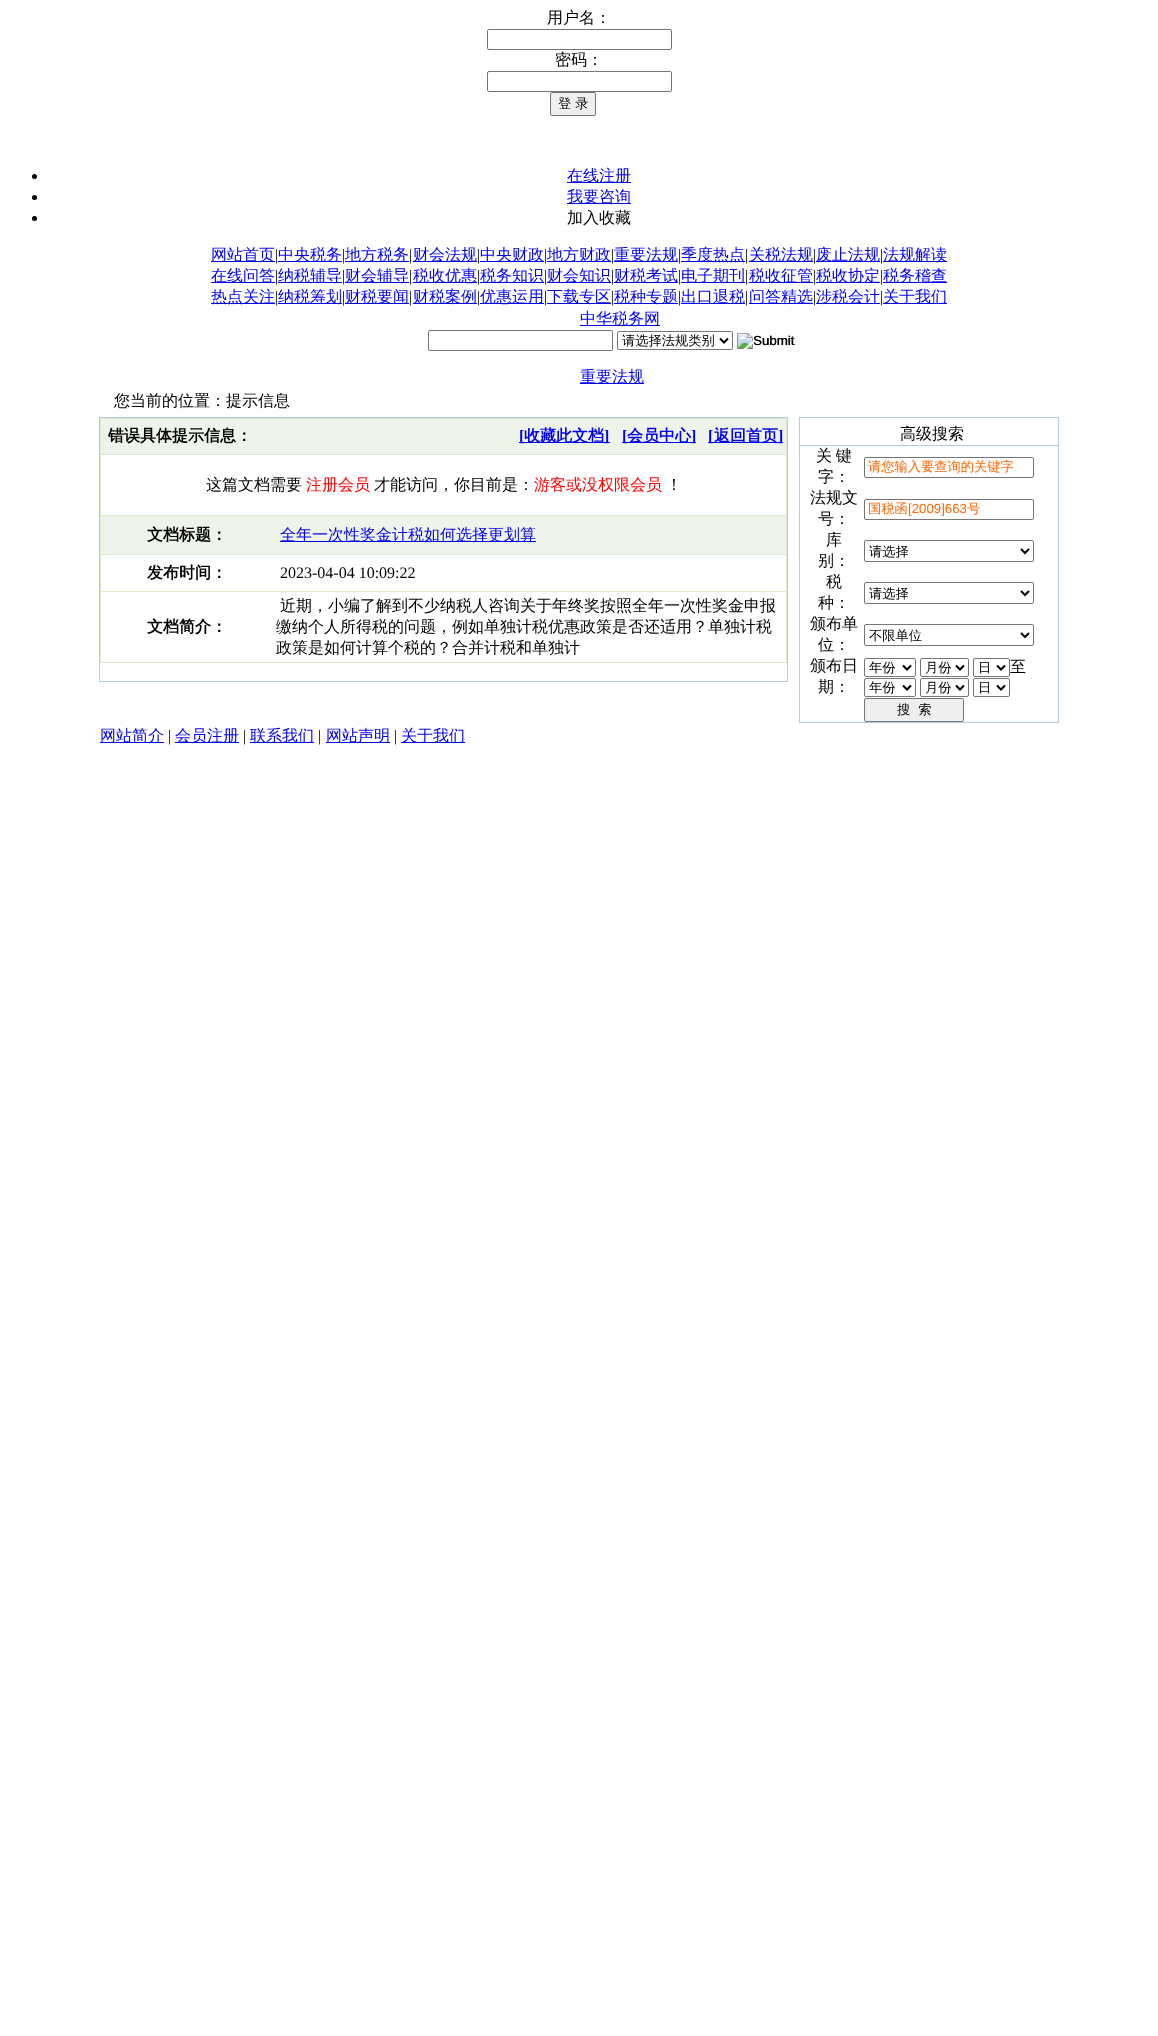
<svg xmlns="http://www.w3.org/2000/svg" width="1158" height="2036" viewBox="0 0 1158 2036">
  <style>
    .t1 { font: 500 16px WenQuanYi Zen Hei; fill: #000; }
    .t2 { font: 500 13.25px WenQuanYi Zen Hei; fill: #000; }
    .t3 { font: 500 16px WenQuanYi Zen Hei; fill: #00e; }
    .t4 { font: 16px Liberation Serif; fill: #000; }
    .t5 { font: 13.25px Liberation Sans; fill: #000; }
    .t6 { font: bold 16px WenQuanYi Zen Hei; fill: #000; }
    .t7 { font: bold 16px Liberation Serif; fill: #00e; }
    .t8 { font: bold 16px WenQuanYi Zen Hei; fill: #00e; }
    .t9 { font: 500 16px WenQuanYi Zen Hei; fill: #f00; }
    .t10 { font: 500 13.25px WenQuanYi Zen Hei; fill: #f60; }
    .t11 { font: 13.25px Liberation Sans; fill: #f60; }
  </style>
  <rect width="100%" height="100%" fill="#fff"/>
  <text x="547" y="23" class="t1">用户名：</text>
  <rect x="487.5" y="29.5" width="184" height="20" rx="1.5" fill="none" stroke="#767676"/>
  <text x="555" y="65" class="t1">密码：</text>
  <rect x="487.5" y="71.5" width="184" height="20" rx="1.5" fill="none" stroke="#767676"/>
  <rect x="550.5" y="92.5" width="45" height="23" rx="1.5" fill="#efefef" stroke="#767676"/>
  <text x="558" y="108" class="t2">登 录</text>
  <circle cx="34.5" cy="176.5" r="2.5" fill="#000"/>
  <rect x="567" y="182" width="64" height="1" fill="#00e"/>
  <text x="567" y="181" class="t3">在线注册</text>
  <circle cx="34.5" cy="197.5" r="2.5" fill="#000"/>
  <rect x="567" y="203" width="64" height="1" fill="#00e"/>
  <text x="567" y="202" class="t3">我要咨询</text>
  <circle cx="34.5" cy="218.5" r="2.5" fill="#000"/>
  <text x="567" y="223" class="t1">加入收藏</text>
  <rect x="211" y="261" width="64" height="1" fill="#00e"/>
  <text x="211" y="260" class="t3">网站首页</text>
  <text x="275" y="260" class="t4">|</text>
  <rect x="278" y="261" width="64" height="1" fill="#00e"/>
  <text x="278" y="260" class="t3">中央税务</text>
  <text x="342" y="260" class="t4">|</text>
  <rect x="345" y="261" width="64" height="1" fill="#00e"/>
  <text x="345" y="260" class="t3">地方税务</text>
  <text x="409" y="260" class="t4">|</text>
  <rect x="413" y="261" width="64" height="1" fill="#00e"/>
  <text x="413" y="260" class="t3">财会法规</text>
  <text x="477" y="260" class="t4">|</text>
  <rect x="480" y="261" width="64" height="1" fill="#00e"/>
  <text x="480" y="260" class="t3">中央财政</text>
  <text x="544" y="260" class="t4">|</text>
  <rect x="547" y="261" width="64" height="1" fill="#00e"/>
  <text x="547" y="260" class="t3">地方财政</text>
  <text x="611" y="260" class="t4">|</text>
  <rect x="614" y="261" width="64" height="1" fill="#00e"/>
  <text x="614" y="260" class="t3">重要法规</text>
  <text x="678" y="260" class="t4">|</text>
  <rect x="681" y="261" width="64" height="1" fill="#00e"/>
  <text x="681" y="260" class="t3">季度热点</text>
  <text x="745" y="260" class="t4">|</text>
  <rect x="749" y="261" width="64" height="1" fill="#00e"/>
  <text x="749" y="260" class="t3">关税法规</text>
  <text x="813" y="260" class="t4">|</text>
  <rect x="816" y="261" width="64" height="1" fill="#00e"/>
  <text x="816" y="260" class="t3">废止法规</text>
  <text x="880" y="260" class="t4">|</text>
  <rect x="883" y="261" width="64" height="1" fill="#00e"/>
  <text x="883" y="260" class="t3">法规解读</text>
  <rect x="211" y="282" width="64" height="1" fill="#00e"/>
  <text x="211" y="281" class="t3">在线问答</text>
  <text x="275" y="281" class="t4">|</text>
  <rect x="278" y="282" width="64" height="1" fill="#00e"/>
  <text x="278" y="281" class="t3">纳税辅导</text>
  <text x="342" y="281" class="t4">|</text>
  <rect x="345" y="282" width="64" height="1" fill="#00e"/>
  <text x="345" y="281" class="t3">财会辅导</text>
  <text x="409" y="281" class="t4">|</text>
  <rect x="413" y="282" width="64" height="1" fill="#00e"/>
  <text x="413" y="281" class="t3">税收优惠</text>
  <text x="477" y="281" class="t4">|</text>
  <rect x="480" y="282" width="64" height="1" fill="#00e"/>
  <text x="480" y="281" class="t3">税务知识</text>
  <text x="544" y="281" class="t4">|</text>
  <rect x="547" y="282" width="64" height="1" fill="#00e"/>
  <text x="547" y="281" class="t3">财会知识</text>
  <text x="611" y="281" class="t4">|</text>
  <rect x="614" y="282" width="64" height="1" fill="#00e"/>
  <text x="614" y="281" class="t3">财税考试</text>
  <text x="678" y="281" class="t4">|</text>
  <rect x="681" y="282" width="64" height="1" fill="#00e"/>
  <text x="681" y="281" class="t3">电子期刊</text>
  <text x="745" y="281" class="t4">|</text>
  <rect x="749" y="282" width="64" height="1" fill="#00e"/>
  <text x="749" y="281" class="t3">税收征管</text>
  <text x="813" y="281" class="t4">|</text>
  <rect x="816" y="282" width="64" height="1" fill="#00e"/>
  <text x="816" y="281" class="t3">税收协定</text>
  <text x="880" y="281" class="t4">|</text>
  <rect x="883" y="282" width="64" height="1" fill="#00e"/>
  <text x="883" y="281" class="t3">税务稽查</text>
  <rect x="211" y="303" width="64" height="1" fill="#00e"/>
  <text x="211" y="302" class="t3">热点关注</text>
  <text x="275" y="302" class="t4">|</text>
  <rect x="278" y="303" width="64" height="1" fill="#00e"/>
  <text x="278" y="302" class="t3">纳税筹划</text>
  <text x="342" y="302" class="t4">|</text>
  <rect x="345" y="303" width="64" height="1" fill="#00e"/>
  <text x="345" y="302" class="t3">财税要闻</text>
  <text x="409" y="302" class="t4">|</text>
  <rect x="413" y="303" width="64" height="1" fill="#00e"/>
  <text x="413" y="302" class="t3">财税案例</text>
  <text x="477" y="302" class="t4">|</text>
  <rect x="480" y="303" width="64" height="1" fill="#00e"/>
  <text x="480" y="302" class="t3">优惠运用</text>
  <text x="544" y="302" class="t4">|</text>
  <rect x="547" y="303" width="64" height="1" fill="#00e"/>
  <text x="547" y="302" class="t3">下载专区</text>
  <text x="611" y="302" class="t4">|</text>
  <rect x="614" y="303" width="64" height="1" fill="#00e"/>
  <text x="614" y="302" class="t3">税种专题</text>
  <text x="678" y="302" class="t4">|</text>
  <rect x="681" y="303" width="64" height="1" fill="#00e"/>
  <text x="681" y="302" class="t3">出口退税</text>
  <text x="745" y="302" class="t4">|</text>
  <rect x="749" y="303" width="64" height="1" fill="#00e"/>
  <text x="749" y="302" class="t3">问答精选</text>
  <text x="813" y="302" class="t4">|</text>
  <rect x="816" y="303" width="64" height="1" fill="#00e"/>
  <text x="816" y="302" class="t3">涉税会计</text>
  <text x="880" y="302" class="t4">|</text>
  <rect x="883" y="303" width="64" height="1" fill="#00e"/>
  <text x="883" y="302" class="t3">关于我们</text>
  <rect x="580" y="325" width="80" height="1" fill="#00e"/>
  <text x="580" y="324" class="t3">中华税务网</text>
  <rect x="428.5" y="330.5" width="184" height="20" rx="1.5" fill="none" stroke="#767676"/>
  <rect x="617.5" y="331.5" width="115" height="18" rx="1.5" fill="none" stroke="#767676"/>
  <path d="M720 338.5L724 342.5L728 338.5" fill="none" stroke="#000" stroke-width="2"/>
  <text x="622" y="345" class="t2">请选择法规类别</text>
  <image x="737" y="333" width="58" height="16" href="images/1.png"/>
  <text x="753" y="345" class="t5">Submit</text>
  <rect x="580" y="383" width="64" height="1" fill="#00e"/>
  <text x="580" y="382" class="t3">重要法规</text>
  <text x="114" y="406" class="t1">您当前的位置：提示信息</text>
  <rect x="99.5" y="417.5" width="688" height="264" fill="none" stroke="#b4cbdc"/>
  <rect x="100" y="418" width="687" height="245" fill="#ddeac8"/>
  <rect x="101" y="419" width="685" height="35" fill="#eff4ea"/>
  <text x="108" y="441" class="t6">错误具体提示信息：</text>
  <rect x="519" y="442" width="91" height="1" fill="#00e"/>
  <text x="519" y="441" class="t7">[</text>
  <text x="524" y="441" class="t8">收藏此文档</text>
  <text x="604" y="441" class="t7">]</text>
  <rect x="622" y="442" width="74" height="1" fill="#00e"/>
  <text x="622" y="441" class="t7">[</text>
  <text x="627" y="441" class="t8">会员中心</text>
  <text x="691" y="441" class="t7">]</text>
  <rect x="708" y="442" width="75" height="1" fill="#00e"/>
  <text x="708" y="441" class="t7">[</text>
  <text x="714" y="441" class="t8">返回首页</text>
  <text x="778" y="441" class="t7">]</text>
  <rect x="101" y="455" width="685" height="60" fill="#fff"/>
  <text x="206" y="490" class="t1">这篇文档需要</text>
  <text x="306" y="490" class="t9">注册会员</text>
  <text x="374" y="490" class="t1">才能访问，你目前是：</text>
  <text x="534" y="490" class="t9">游客或没权限会员</text>
  <text x="666" y="490" class="t1">！</text>
  <rect x="101" y="516" width="685" height="38" fill="#eff4ea"/>
  <text x="147" y="540" class="t6">文档标题：</text>
  <rect x="280" y="541" width="256" height="1" fill="#00e"/>
  <text x="280" y="540" class="t3">全年一次性奖金计税如何选择更划算</text>
  <rect x="101" y="555" width="685" height="36" fill="#fff"/>
  <text x="147" y="578" class="t6">发布时间：</text>
  <text x="280" y="578" class="t4">2023-04-04 10:09:22</text>
  <rect x="101" y="592" width="685" height="70" fill="#fff"/>
  <text x="147" y="632" class="t6">文档简介：</text>
  <text x="280" y="611" class="t1">近期，小编了解到不少纳税人咨询关于年终奖按照全年一次性奖金申报</text>
  <text x="276" y="632" class="t1">缴纳个人所得税的问题，例如单独计税优惠政策是否还适用？单独计税</text>
  <text x="276" y="653" class="t1">政策是如何计算个税的？合并计税和单独计</text>
  <rect x="799.5" y="417.5" width="259" height="28" fill="none" stroke="#b4cbdc"/>
  <text x="900" y="439" class="t1">高级搜索</text>
  <rect x="1058" y="446" width="1" height="277" fill="#b4cbdc"/>
  <rect x="799" y="722" width="260" height="1" fill="#b4cbdc"/>
  <rect x="799" y="446" width="1" height="277" fill="#b4cbdc"/>
  <text x="816" y="461" word-spacing="-1" class="t1">关 键</text>
  <text x="818" y="482" class="t1">字：</text>
  <rect x="864.5" y="457.5" width="169" height="20" rx="1.5" fill="none" stroke="#767676"/>
  <text x="868" y="471" class="t10">请您输入要查询的关键字</text>
  <text x="810" y="503" class="t1">法规文</text>
  <text x="818" y="524" class="t1">号：</text>
  <rect x="864.5" y="499.5" width="169" height="20" rx="1.5" fill="none" stroke="#767676"/>
  <text x="868" y="513" class="t10">国税函</text>
  <text x="908" y="513" class="t11">[2009]663</text>
  <text x="967" y="513" class="t10">号</text>
  <text x="826" y="545" class="t1">库</text>
  <text x="818" y="566" class="t1">别：</text>
  <rect x="864.5" y="540.5" width="169" height="21" rx="1.5" fill="none" stroke="#767676"/>
  <path d="M1021 549L1025 553L1029 549" fill="none" stroke="#000" stroke-width="2"/>
  <text x="869" y="556" class="t2">请选择</text>
  <text x="826" y="587" class="t1">税</text>
  <text x="818" y="608" class="t1">种：</text>
  <rect x="864.5" y="582.5" width="169" height="21" rx="1.5" fill="none" stroke="#767676"/>
  <path d="M1021 591L1025 595L1029 591" fill="none" stroke="#000" stroke-width="2"/>
  <text x="869" y="598" class="t2">请选择</text>
  <text x="810" y="629" class="t1">颁布单</text>
  <text x="818" y="650" class="t1">位：</text>
  <rect x="864.5" y="624.5" width="169" height="21" rx="1.5" fill="none" stroke="#767676"/>
  <path d="M1021 633L1025 637L1029 633" fill="none" stroke="#000" stroke-width="2"/>
  <text x="869" y="640" class="t2">不限单位</text>
  <text x="810" y="671" class="t1">颁布日</text>
  <text x="818" y="692" class="t1">期：</text>
  <rect x="864.5" y="658.5" width="51" height="18" rx="1.5" fill="none" stroke="#767676"/>
  <path d="M903 665.5L907 669.5L911 665.5" fill="none" stroke="#000" stroke-width="2"/>
  <text x="869" y="672" class="t2">年份</text>
  <rect x="920.5" y="658.5" width="48" height="18" rx="1.5" fill="none" stroke="#767676"/>
  <path d="M956 665.5L960 669.5L964 665.5" fill="none" stroke="#000" stroke-width="2"/>
  <text x="925" y="672" class="t2">月份</text>
  <rect x="973.5" y="658.5" width="36" height="18" rx="1.5" fill="none" stroke="#767676"/>
  <path d="M997 665.5L1001 669.5L1005 665.5" fill="none" stroke="#000" stroke-width="2"/>
  <text x="978" y="672" class="t2">日</text>
  <text x="1010" y="672" class="t1">至</text>
  <rect x="864.5" y="678.5" width="51" height="18" rx="1.5" fill="none" stroke="#767676"/>
  <path d="M903 685.5L907 689.5L911 685.5" fill="none" stroke="#000" stroke-width="2"/>
  <text x="869" y="692" class="t2">年份</text>
  <rect x="920.5" y="678.5" width="48" height="18" rx="1.5" fill="none" stroke="#767676"/>
  <path d="M956 685.5L960 689.5L964 685.5" fill="none" stroke="#000" stroke-width="2"/>
  <text x="925" y="692" class="t2">月份</text>
  <rect x="973.5" y="678.5" width="36" height="18" rx="1.5" fill="none" stroke="#767676"/>
  <path d="M997 685.5L1001 689.5L1005 685.5" fill="none" stroke="#000" stroke-width="2"/>
  <text x="978" y="692" class="t2">日</text>
  <rect x="864.5" y="698.5" width="99" height="23" rx="1.5" fill="#efefef" stroke="#767676"/>
  <text x="897" y="714" class="t2" xml:space="preserve">搜  索</text>
  <rect x="100" y="742" width="64" height="1" fill="#00e"/>
  <text x="100" y="741" class="t3">网站简介</text>
  <text x="168" y="741" class="t4">|</text>
  <rect x="175" y="742" width="64" height="1" fill="#00e"/>
  <text x="175" y="741" class="t3">会员注册</text>
  <text x="243" y="741" class="t4">|</text>
  <rect x="250" y="742" width="64" height="1" fill="#00e"/>
  <text x="250" y="741" class="t3">联系我们</text>
  <text x="318" y="741" class="t4">|</text>
  <rect x="326" y="742" width="64" height="1" fill="#00e"/>
  <text x="326" y="741" class="t3">网站声明</text>
  <text x="394" y="741" class="t4">|</text>
  <rect x="401" y="742" width="64" height="1" fill="#00e"/>
  <text x="401" y="741" class="t3">关于我们</text>
</svg>
